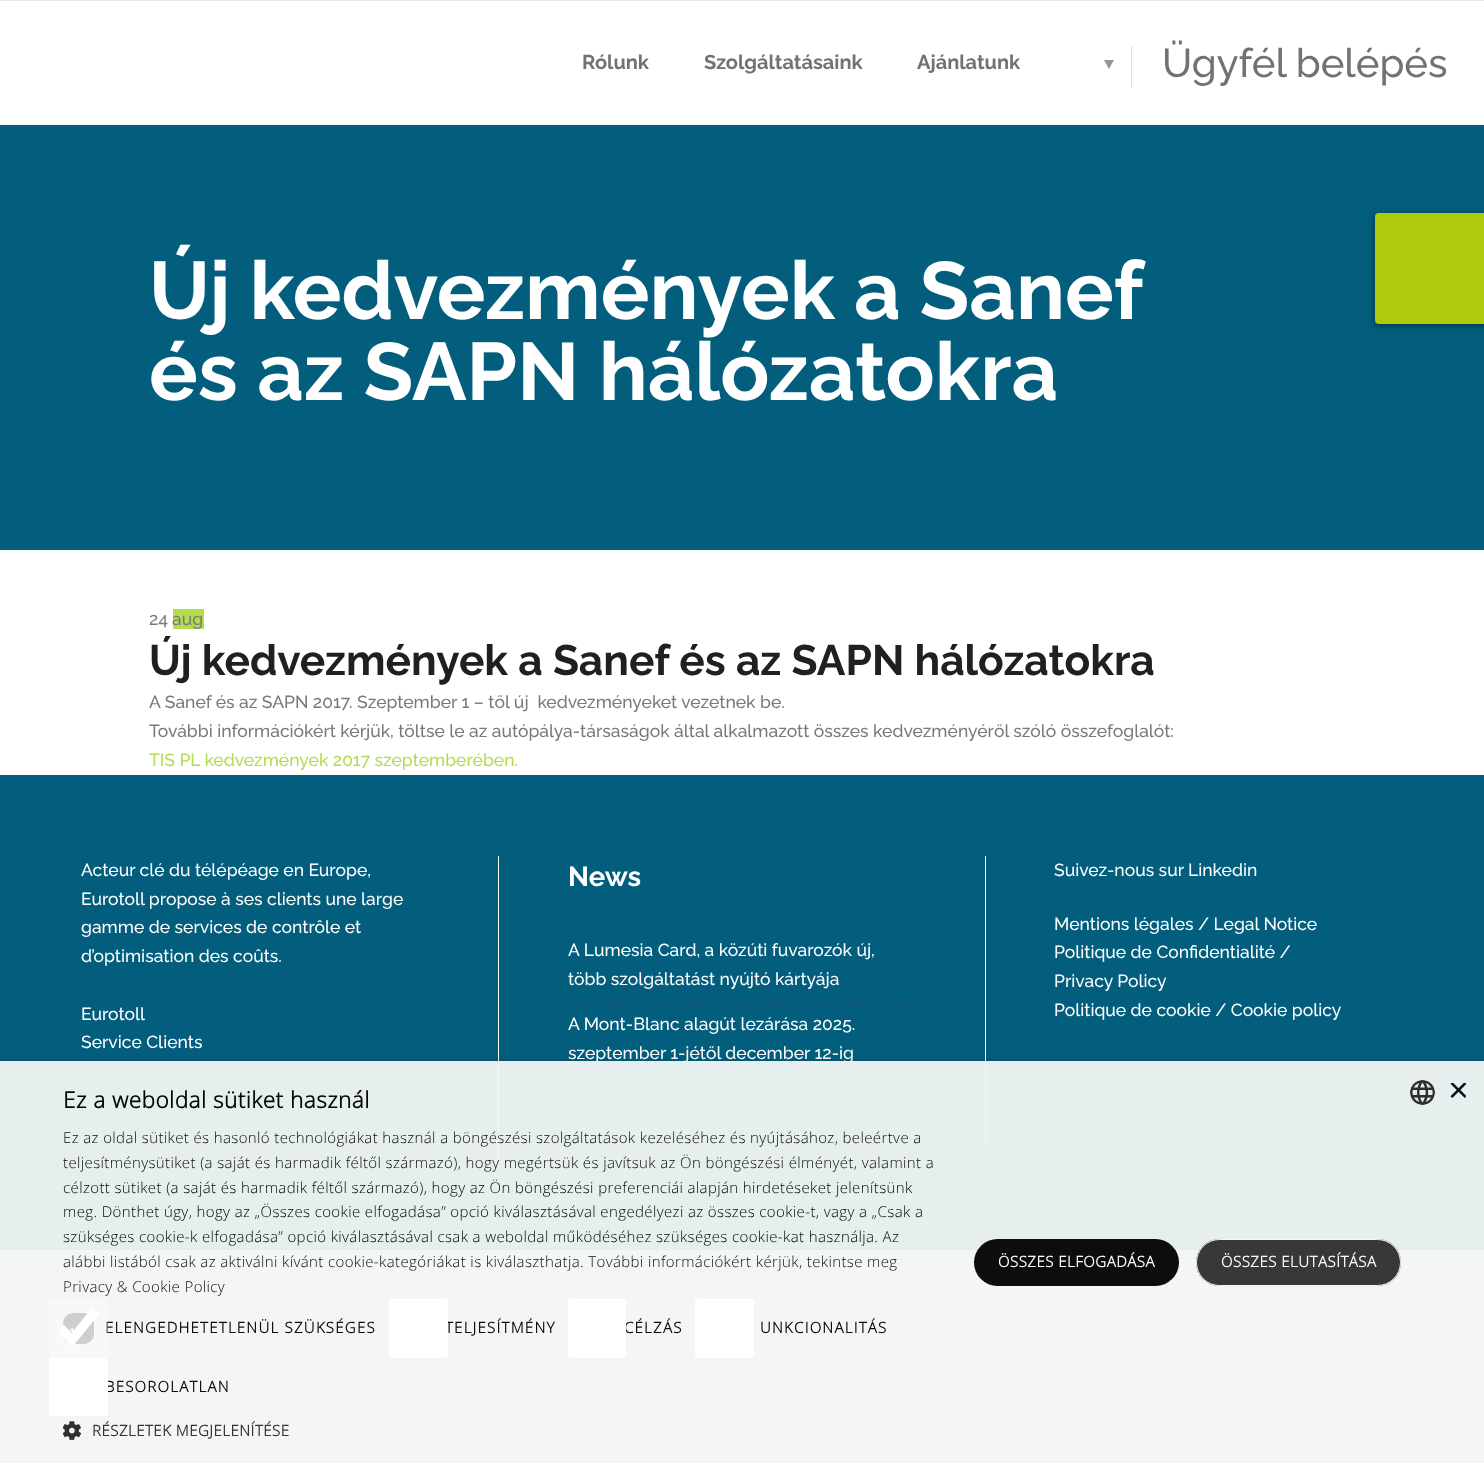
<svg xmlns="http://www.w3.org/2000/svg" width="1484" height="1463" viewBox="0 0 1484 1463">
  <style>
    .t1 { font: bold 20px Raleway; fill: #727272; }
    .t2 { font: 500 40px Raleway; fill: #727272; }
    .t3 { font: bold 81.25px Raleway; fill: #fff; }
    .t4 { font: 500 17.5px Raleway; fill: #797979; }
    .t5 { font: bold 42.5px Raleway; fill: #202020; }
    .t6 { font: 500 17.5px Raleway; fill: #b2dd4c; }
    .t7 { font: 500 17.5px Raleway; fill: #fff; }
    .t8 { font: bold 27.5px Raleway; fill: #fff; }
    .t9 { font: bold 22.5px Open Sans; letter-spacing: 0.5px; fill: #000506; }
    .t10 { font: 300 15px Open Sans; letter-spacing: 0.38px; fill: #0c0c0c; }
    .t11 { font: 300 15px Open Sans; letter-spacing: 0.38px; fill: #000506; }
    .t12 { font: bold 15px Open Sans; letter-spacing: 1.25px; fill: #0c0c0c; }
    .t13 { font: bold 15px Open Sans; letter-spacing: 0.5px; fill: #313131; }
    .t14 { font: bold 15px Open Sans; letter-spacing: 0.5px; fill: #fff; }
    .t15 { font: 36px Liberation Sans; fill: #011218; }
  </style>
  <defs>
    <clipPath id="clip1"><path d="M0 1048H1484V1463H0ZM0 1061H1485V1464H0Z" clip-rule="evenodd"/></clipPath>
    <clipPath id="clip2"><rect x="1448" y="1083" width="18" height="18"/></clipPath>
  </defs>
  <rect width="100%" height="100%" fill="#fff"/>
  <rect x="0" y="0" width="1484" height="1" fill="#e7e7e7"/>
  <text x="582" y="69" class="t1">Rólunk</text>
  <text x="704" y="69" class="t1">Szolgáltatásaink</text>
  <text x="917" y="69" class="t1">Ajánlatunk</text>
  <path d="M1104 60H1114L1109 69Z" fill="#969696"/>
  <rect x="1131" y="46" width="1" height="42" fill="#ddd"/>
  <text x="1162" y="77" class="t2">Ügyfél belépés</text>
  <rect x="0" y="125" width="1484" height="425" fill="#035e7e"/>
  <text x="149" y="319" word-spacing="-0.5" class="t3">Új kedvezmények a Sanef</text>
  <text x="149" y="400" class="t3">és az SAPN hálózatokra</text>
  <text x="149" y="625" class="t4">24</text>
  <rect x="173" y="609" width="31" height="20" fill="#b2dd4c"/>
  <text x="172" y="625" class="t4">aug</text>
  <text x="149" y="675" class="t5">Új kedvezmények a Sanef és az SAPN hálózatokra</text>
  <text x="149" y="708" class="t4" xml:space="preserve">A Sanef és az SAPN 2017. Szeptember 1 – től új  kedvezményeket vezetnek be.</text>
  <text x="149" y="737" class="t4">További információkért kérjük, töltse le az autópálya-társaságok által alkalmazott összes kedvezményéről szóló összefoglalót:</text>
  <text x="149" y="766" class="t6">TIS PL kedvezmények 2017 szeptemberében.</text>
  <rect x="1374" y="215" width="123" height="111" rx="4" fill="#00000063" filter="blur(3px)"/>
  <rect x="1375" y="213" width="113" height="111" rx="4" fill="#afca0b"/>
  <rect x="0" y="775" width="1484" height="475" fill="#035e7e"/>
  <rect x="498" y="856" width="1" height="313" fill="#fff"/>
  <text x="81" y="876" class="t7">Acteur clé du télépéage en Europe,</text>
  <text x="81" y="905" class="t7">Eurotoll propose à ses clients une large</text>
  <text x="81" y="933" class="t7">gamme de services de contrôle et</text>
  <text x="81" y="962" class="t7">d’optimisation des coûts.</text>
  <text x="81" y="1020" class="t7">Eurotoll</text>
  <text x="81" y="1048" class="t7">Service Clients</text>
  <rect x="985" y="856" width="1" height="290" fill="#fff"/>
  <text x="568" y="886" class="t8">News</text>
  <path d="M567.5 1002H916" fill="none" stroke="#404040" stroke-width="1.2" stroke-dasharray="1.25 1.25"/>
  <text x="568" y="956" class="t7">A Lumesia Card, a közúti fuvarozók új,</text>
  <text x="568" y="985" class="t7">több szolgáltatást nyújtó kártyája</text>
  <path d="M567.5 1075.5H916" fill="none" stroke="#404040" stroke-width="1.2" stroke-dasharray="1.25 1.25"/>
  <text x="568" y="1030" class="t7">A Mont-Blanc alagút lezárása 2025.</text>
  <text x="568" y="1059" class="t7">szeptember 1-jétől december 12-ig</text>
  <path d="M567.5 1120.5H916" fill="none" stroke="#404040" stroke-width="1.2" stroke-dasharray="1.25 1.25"/>
  <text x="1054" y="876" class="t7">Suivez-nous sur Linkedin</text>
  <text x="1054" y="930" class="t7">Mentions légales / Legal Notice</text>
  <text x="1054" y="958" class="t7">Politique de Confidentialité /</text>
  <text x="1054" y="987" class="t7">Privacy Policy</text>
  <text x="1054" y="1016" class="t7">Politique de cookie / Cookie policy</text>
  <g clip-path="url(#clip1)">
    <rect x="1" y="1064" width="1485" height="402" fill="#00000054" filter="blur(5px)"/>
  </g>
  <rect x="0" y="1061" width="1484" height="402" fill="#f3f6f4f2"/>
  <text x="63" y="1108" class="t9">Ez a weboldal sütiket használ</text>
  <text x="63" y="1143" class="t10">Ez az oldal sütiket és hasonló technológiákat használ a böngészési szolgáltatások kezeléséhez és nyújtásához, beleértve a</text>
  <text x="63" y="1168" class="t10">teljesítménysütiket (a saját és harmadik féltől származó), hogy megértsük és javítsuk az Ön böngészési élményét, valamint a</text>
  <text x="63" y="1193" class="t11">célzott sütiket (a saját és harmadik féltől származó), hogy az Ön böngészési preferenciái alapján hirdetéseket jelenítsünk</text>
  <text x="63" y="1217" class="t11">meg. Dönthet úgy, hogy az „Összes cookie elfogadása” opció kiválasztásával engedélyezi az összes cookie-t, vagy a „Csak a</text>
  <text x="63" y="1242" class="t11">szükséges cookie-k elfogadása” opció kiválasztásával csak a weboldal működéséhez szükséges cookie-kat használja. Az</text>
  <text x="63" y="1267" class="t10">alábbi listából csak az aktiválni kívánt cookie-kategóriákat is kiválaszthatja. További információkért kérjük, tekintse meg</text>
  <text x="63" y="1292" class="t10">Privacy &amp; Cookie Policy</text>
  <rect x="63" y="1313" width="31" height="31" rx="10" fill="#b8bab8"/>
  <path d="M71 1329L75.5 1333L85 1323.5" fill="none" stroke="#f4f6f5" stroke-width="3.3"/>
  <text x="105" y="1333" class="t12">ELENGEDHETETLENÜL SZÜKSÉGES</text>
  <rect x="49" y="1299" width="59" height="59" rx="2.5" fill="#ffffff4d"/>
  <path d="M60.5 1328L72 1340L96 1310.5" fill="none" stroke="#fff" stroke-width="9.4"/>
  <text x="445" y="1333" class="t12">TELJESÍTMÉNY</text>
  <rect x="389" y="1299" width="59" height="59" rx="2.5" fill="#fff"/>
  <text x="624" y="1333" class="t12">CÉLZÁS</text>
  <rect x="568" y="1299" width="58" height="59" rx="2.5" fill="#fff"/>
  <rect x="695" y="1299" width="59" height="59" rx="2.5" fill="#fff"/>
  <text x="760" y="1333" class="t12">UNKCIONALITÁS</text>
  <text x="105" y="1392" class="t12">BESOROLATLAN</text>
  <rect x="49" y="1358" width="59" height="58" rx="2.5" fill="#fff"/>
  <image x="63" y="1421" width="18" height="19" href="images/1.png"/>
  <text x="92" y="1436" class="t13">RÉSZLETEK MEGJELENÍTÉSE</text>
  <rect x="974" y="1239" width="205" height="47" rx="23.5" fill="#000000f2"/>
  <text x="998" y="1267" class="t14">ÖSSZES ELFOGADÁSA</text>
  <rect x="1196" y="1239" width="205" height="47" rx="23.5" fill="#2d2d2df2"/>
  <rect x="1196.5" y="1239.5" width="204" height="46" rx="23" fill="none" stroke="#fffffff2"/>
  <text x="1221" y="1267" class="t14">ÖSSZES ELUTASÍTÁSA</text>
  <image x="1410" y="1080" width="25" height="25" href="images/2.png"/>
  <g clip-path="url(#clip2)">
    <text x="1448" y="1102" class="t15">×</text>
  </g>
</svg>
